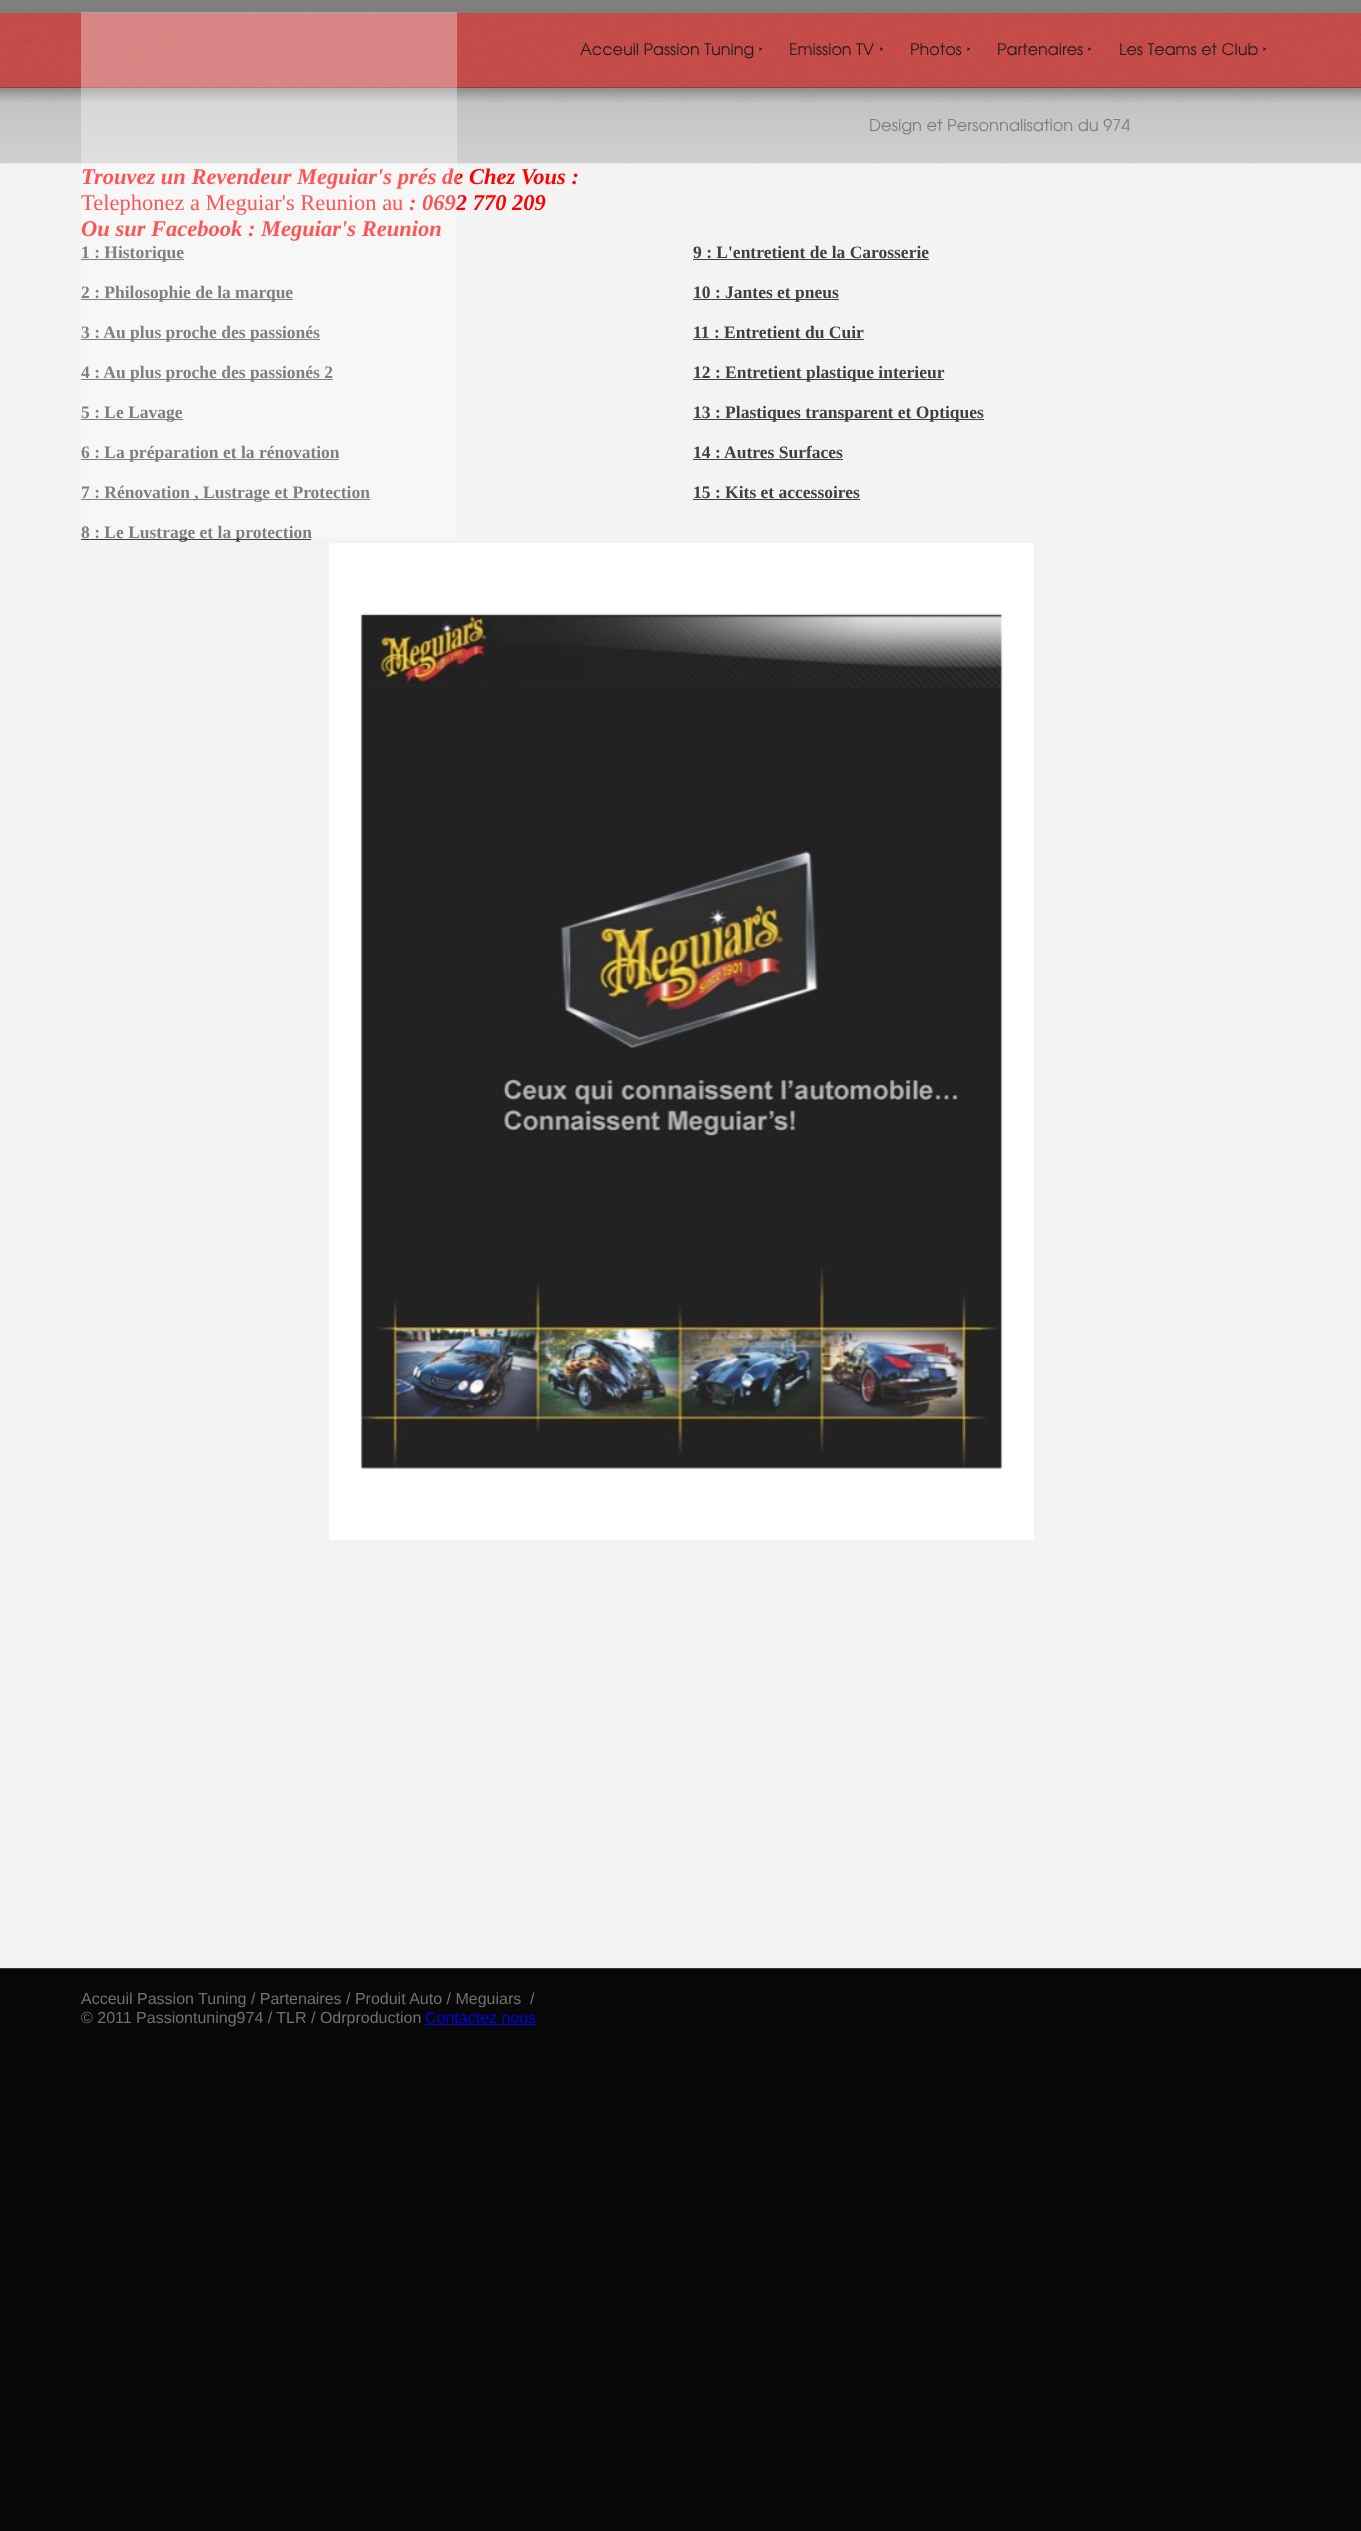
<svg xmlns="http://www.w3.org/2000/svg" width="1361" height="2531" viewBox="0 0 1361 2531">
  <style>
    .t1 { font: italic bold 22.5px Liberation Serif; fill: #f00; }
    .t2 { font: 22.5px Liberation Serif; fill: #f00; }
    .t3 { font: bold 17.5px Liberation Serif; fill: #404040; }
    .t4 { font: 16px TeX Gyre Adventor; fill: #1f1f1f; }
    .t5 { font: 100 16px Noto Sans; fill: #1f1f1f; }
    .t6 { font: 16.25px TeX Gyre Adventor; fill: #7e7e7e; }
    .t7 { font: 16px Liberation Sans; fill: #717171; }
    .t8 { font: 16px Liberation Sans; fill: #00e; }
  </style>
  <rect width="100%" height="100%" fill="#070707"/>
  <rect x="0" y="88" width="1361" height="1880" fill="#f3f3f3"/>
  <rect x="0" y="0" width="1361" height="13" fill="#7f7f7f"/>
  <rect x="0" y="13" width="1361" height="75" fill="#c74947"/>
  <image x="0" y="13" width="1361" height="74" href="images/1.png"/>
  <image x="0" y="87" width="1361" height="76" href="images/2.png"/>
  <rect x="0" y="163" width="1361" height="1" fill="#e5e5e5"/>
  <image x="0" y="87" width="1361" height="15" href="images/3.png"/>
  <text x="81" y="184" class="t1">Trouvez un Revendeur Meguiar's prés de Chez Vous :</text>
  <text x="81" y="210" class="t2">Telephonez a Meguiar's Reunion au</text>
  <text x="409" y="210" class="t1">: 0692 770 209</text>
  <text x="81" y="236" class="t1">Ou sur Facebook : Meguiar's Reunion</text>
  <rect x="81" y="259" width="103" height="1" fill="#404040"/>
  <text x="81" y="258" class="t3">1 : Historique</text>
  <rect x="81" y="299" width="212" height="1" fill="#404040"/>
  <text x="81" y="298" class="t3">2 : Philosophie de la marque</text>
  <rect x="81" y="339" width="239" height="1" fill="#404040"/>
  <text x="81" y="338" class="t3">3 : Au plus proche des passionés</text>
  <rect x="81" y="379" width="252" height="1" fill="#404040"/>
  <text x="81" y="378" class="t3">4 : Au plus proche des passionés 2</text>
  <rect x="81" y="419" width="102" height="1" fill="#404040"/>
  <text x="81" y="418" class="t3">5 : Le Lavage</text>
  <rect x="81" y="459" width="258" height="1" fill="#404040"/>
  <text x="81" y="458" class="t3">6 : La préparation et la rénovation</text>
  <rect x="81" y="499" width="289" height="1" fill="#404040"/>
  <text x="81" y="498" class="t3">7 : Rénovation , Lustrage et Protection</text>
  <rect x="81" y="539" width="230" height="1" fill="#404040"/>
  <text x="81" y="538" class="t3">8 : Le Lustrage et la protection</text>
  <rect x="81" y="12" width="376" height="526" fill="#ffffff54"/>
  <text x="580" y="55" class="t4">Acceuil Passion Tuning</text>
  <text x="758" y="55" class="t5">‣</text>
  <text x="789" y="55" class="t4">Emission TV</text>
  <text x="879" y="55" class="t5">‣</text>
  <text x="910" y="55" class="t4">Photos</text>
  <text x="966" y="55" class="t5">‣</text>
  <text x="997" y="55" class="t4">Partenaires</text>
  <text x="1087" y="55" class="t5">‣</text>
  <text x="1119" y="55" class="t4">Les Teams et Club</text>
  <text x="1262" y="55" class="t5">‣</text>
  <text x="869" y="131" class="t6">Design et Personnalisation du 974</text>
  <text x="693" y="258" class="t3">9 : L'entretient de la Carosserie</text>
  <rect x="693" y="259" width="236" height="1" fill="#404040"/>
  <rect x="693" y="299" width="146" height="1" fill="#404040"/>
  <text x="693" y="298" class="t3">10 : Jantes et pneus</text>
  <text x="693" y="338" class="t3">11 : Entretient du Cuir</text>
  <rect x="693" y="339" width="171" height="1" fill="#404040"/>
  <rect x="693" y="379" width="251" height="1" fill="#404040"/>
  <text x="693" y="378" class="t3">12 : Entretient plastique interieur</text>
  <rect x="693" y="419" width="291" height="1" fill="#404040"/>
  <text x="693" y="418" class="t3">13 : Plastiques transparent et Optiques</text>
  <text x="693" y="458" class="t3">14 : Autres Surfaces</text>
  <rect x="693" y="459" width="150" height="1" fill="#404040"/>
  <text x="693" y="498" class="t3">15 : Kits et accessoires</text>
  <rect x="693" y="499" width="167" height="1" fill="#404040"/>
  <image x="329" y="543" width="705" height="997" href="images/4.png"/>
  <rect x="0" y="1968" width="1361" height="1" fill="#383838"/>
  <text x="81" y="2004" class="t7">Acceuil Passion Tuning / Partenaires / Produit Auto / Meguiars</text>
  <text x="530" y="2004" class="t7">/</text>
  <text x="81" y="2023" class="t7">© 2011 Passiontuning974 / TLR / Odrproduction</text>
  <text x="425" y="2023" class="t8">Contactez nous</text>
  <rect x="425" y="2024" width="111" height="1" fill="#00e"/>
</svg>
